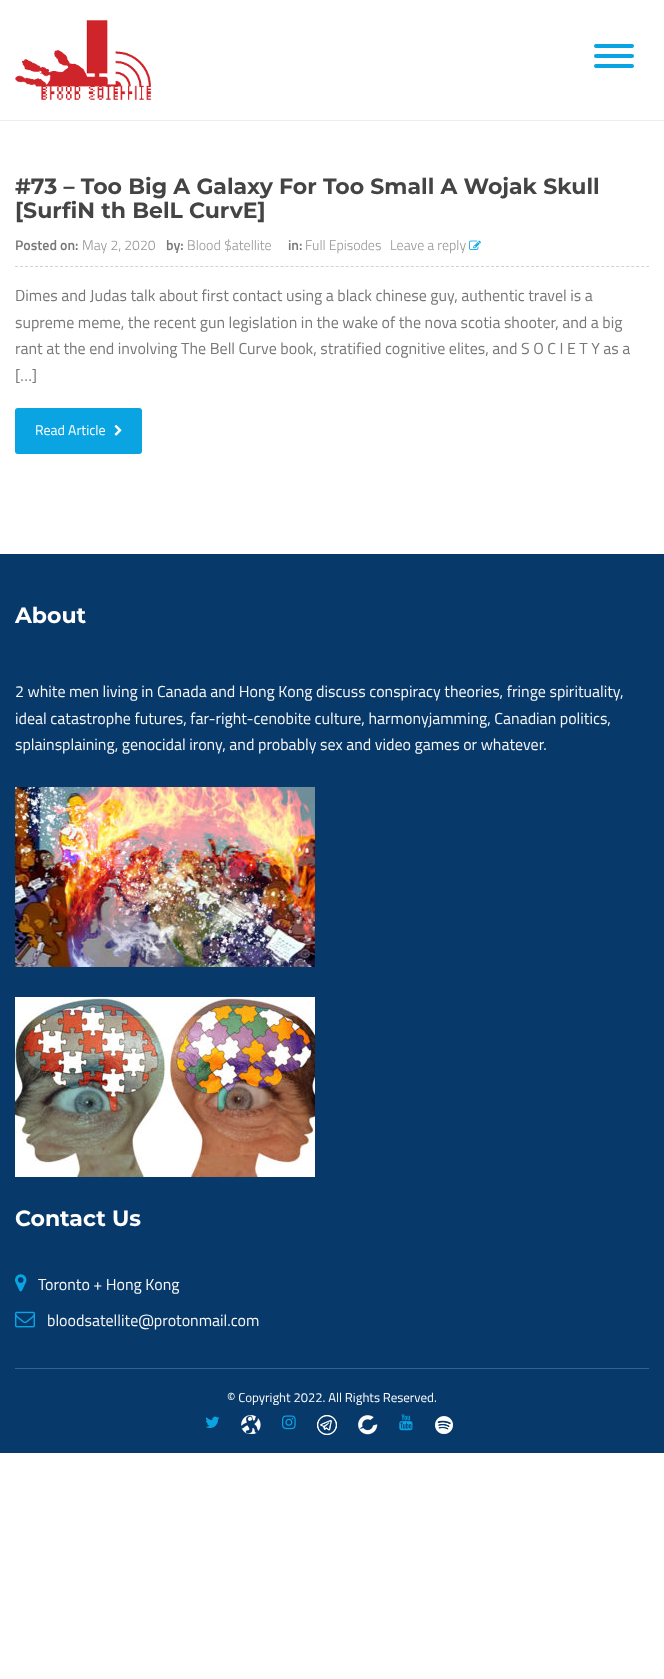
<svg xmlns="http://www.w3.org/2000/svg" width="664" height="1679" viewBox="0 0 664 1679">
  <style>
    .t1 { font: bold 22px Montserrat; fill: #444; }
    .t2 { font: 600 14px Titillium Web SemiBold; fill: #797878; }
    .t3 { font: 300 14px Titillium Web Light; fill: #969696; }
    .t4 { font: 16px Titillium Web; fill: #797878; }
    .t5 { font: 14px Titillium Web; fill: #fff; }
    .t6 { font: bold 22px Montserrat; fill: #fff; }
    .t7 { font: 16px Titillium Web; fill: #f7f7f7; }
    .t8 { font: 13px Titillium Web; fill: #fff; }
  </style>
  <rect width="100%" height="100%" fill="#fff"/>
  <rect x="0" y="120" width="664" height="1" fill="#ededed"/>
  <image x="15" y="20" width="136" height="80" href="images/1.png"/>
  <rect x="594" y="64" width="40" height="4" rx="2" fill="#0aa4e3"/>
  <rect x="594" y="44" width="40" height="4" rx="2" fill="#0aa4e3"/>
  <rect x="594" y="54" width="40" height="4" rx="2" fill="#0aa4e3"/>
  <text x="15" y="194" class="t1">#73 – Too Big A Galaxy For Too Small A Wojak Skull</text>
  <text x="15" y="218" class="t1">[SurfiN th BelL CurvE]</text>
  <path d="M15 266.5H649" fill="none" stroke="#d2d2d2" stroke-dasharray="3 2.01"/>
  <text x="15" y="250" class="t2">Posted on:</text>
  <text x="82" y="250" class="t3">May 2, 2020</text>
  <text x="166" y="250" class="t2">by:</text>
  <text x="187" y="250" class="t3">Blood $atellite</text>
  <text x="288" y="250" class="t2">in:</text>
  <text x="305" y="250" class="t3">Full Episodes</text>
  <text x="390" y="250" class="t3">Leave a reply</text>
  <image x="469" y="240" width="12" height="10" href="images/2.png"/>
  <text x="15" y="301" class="t4">Dimes and Judas talk about first contact using a black chinese guy, authentic travel is a</text>
  <text x="15" y="328" class="t4">supreme meme, the recent gun legislation in the wake of the nova scotia shooter, and a big</text>
  <text x="15" y="354" class="t4">rant at the end involving The Bell Curve book, stratified cognitive elites, and S O C I E T Y as a</text>
  <text x="15" y="381" class="t4">[…]</text>
  <rect x="15" y="408" width="127" height="46" rx="3" fill="#0aa4e3"/>
  <text x="35" y="435" class="t5">Read Article</text>
  <image x="114" y="424" width="8" height="12" href="images/3.png"/>
  <rect x="0" y="554" width="664" height="899" fill="#07396b"/>
  <text x="15" y="623" class="t6">About</text>
  <text x="15" y="697" class="t7">2 white men living in Canada and Hong Kong discuss conspiracy theories, fringe spirituality,</text>
  <text x="15" y="724" class="t7">ideal catastrophe futures, far-right-cenobite culture, harmonyjamming, Canadian politics,</text>
  <text x="15" y="750" class="t7">splainsplaining, genocidal irony, and probably sex and video games or whatever.</text>
  <image x="15" y="787" width="300" height="180" href="images/4.png"/>
  <image x="15" y="997" width="300" height="180" href="images/5.png"/>
  <text x="15" y="1226" class="t6">Contact Us</text>
  <image x="15" y="1274" width="12" height="18" href="images/6.png"/>
  <text x="38" y="1290" class="t7">Toronto + Hong Kong</text>
  <image x="15" y="1311" width="20" height="17" href="images/7.png"/>
  <text x="47" y="1326" class="t7">bloodsatellite@protonmail.com</text>
  <rect x="15" y="1368" width="634" height="1" fill="#396189"/>
  <text x="227" y="1402" class="t8">© Copyright 2022. All Rights Reserved.</text>
  <image x="205" y="1416" width="15" height="12" href="images/8.png"/>
  <image x="241" y="1415" width="20" height="19" href="images/9.png"/>
  <image x="282" y="1415" width="14" height="15" href="images/10.png"/>
  <image x="317" y="1415" width="20" height="20" href="images/11.png"/>
  <image x="358" y="1415" width="20" height="20" href="images/12.png"/>
  <image x="399" y="1414" width="14" height="17" href="images/13.png"/>
  <image x="435" y="1416" width="18" height="18" href="images/14.png"/>
</svg>
